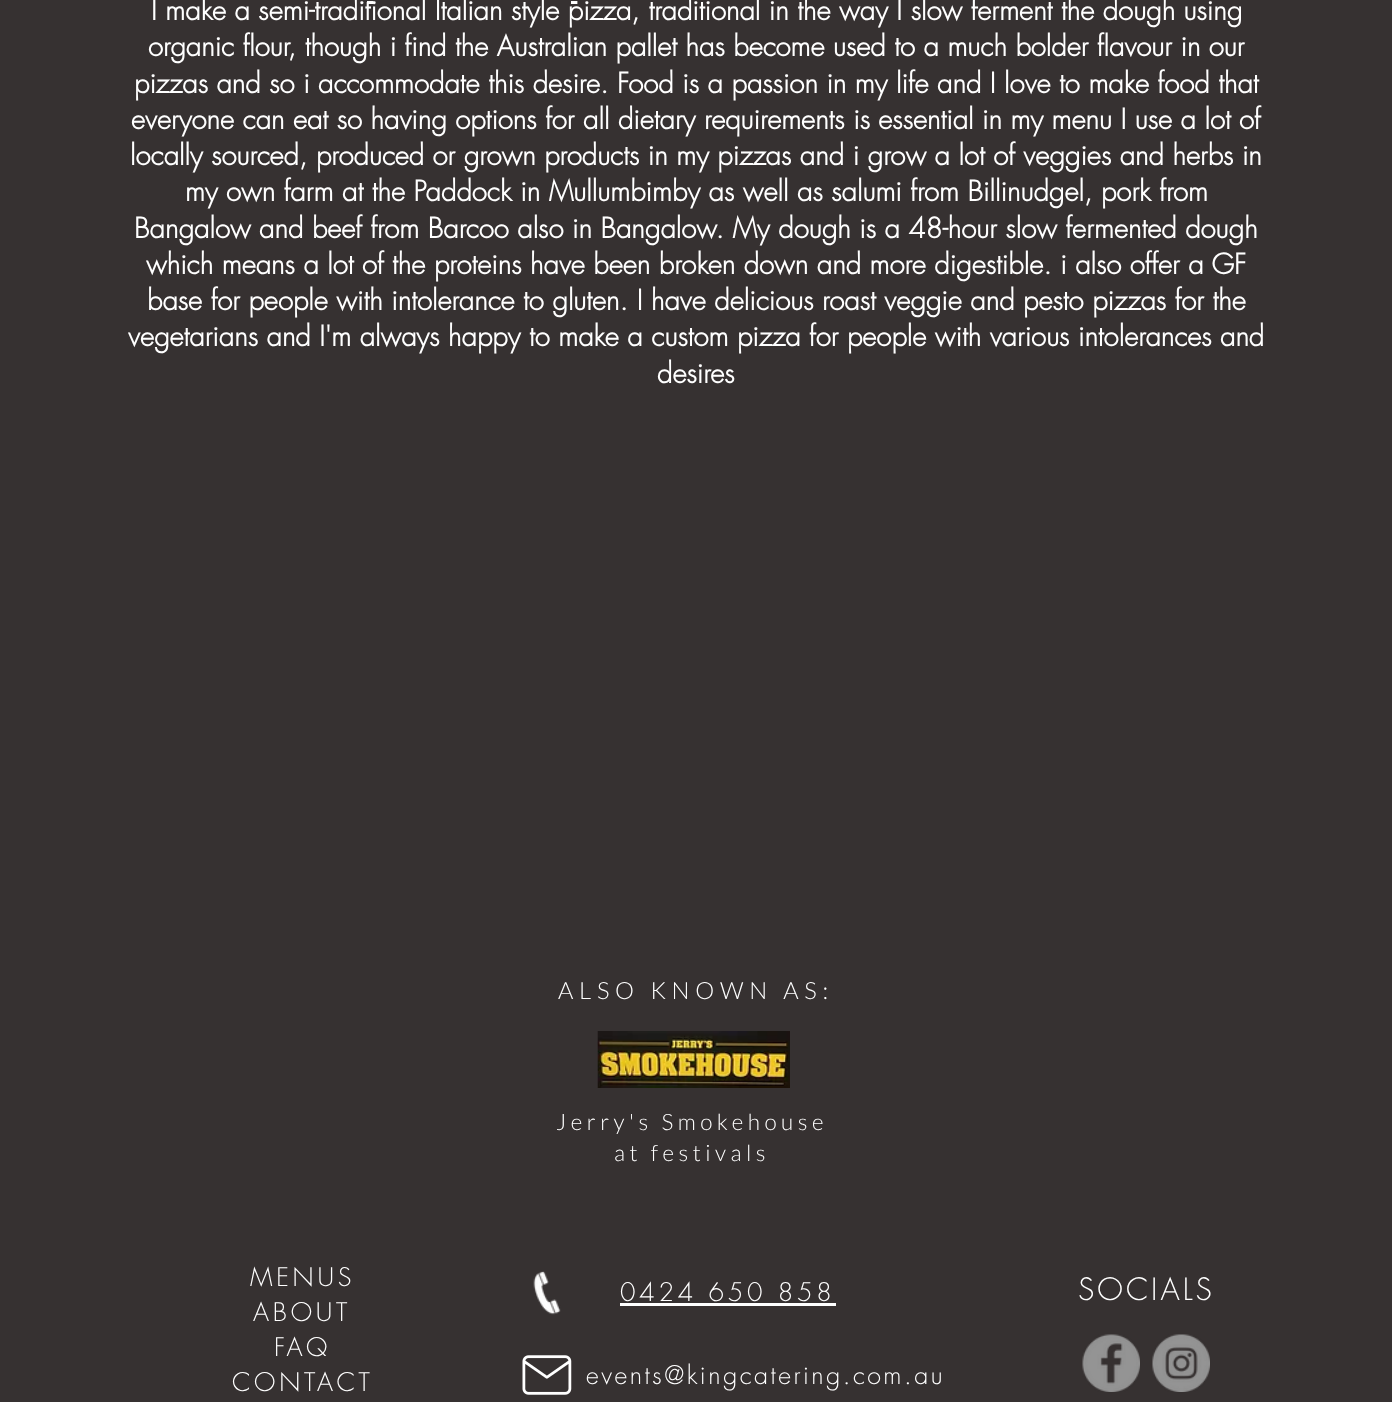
<svg xmlns="http://www.w3.org/2000/svg" width="1392" height="1402" viewBox="0 0 1392 1402">
  <style>
    .t1 { font: bold 25px Liberation Sans; fill: #fff; }
    .t2 { font: bold 27.5px futura; fill: #fff; }
    .t3 { font: 300 23.75px Lato; letter-spacing: 5.75px; fill: #fff; }
    .t4 { font: 300 22.5px Lato; letter-spacing: 4.5px; fill: #fff; }
    .t5 { font: 300 25px futura; letter-spacing: 3.75px; fill: #fff; }
    .t6 { font: 300 30px futura; letter-spacing: 3px; fill: #fff; }
    .t7 { font: 300 25px futura; letter-spacing: 2.5px; fill: #fff; }
  </style>
  <rect width="100%" height="100%" fill="#363131"/>
  <text x="366" y="9" class="t1">-</text>
  <text x="570" y="9" class="t1">-</text>
  <text x="151" y="20" class="t2">I make a semi-traditional Italian style pizza, traditional in the way I slow ferment the dough using</text>
  <text x="148" y="56" class="t2">organic flour, though i find the Australian pallet has become used to a much bolder flavour in our</text>
  <text x="134" y="93" class="t2">pizzas and so i accommodate this desire. Food is a passion in my life and I love to make food that</text>
  <text x="131" y="129" class="t2">everyone can eat so having options for all dietary requirements is essential in my menu I use a lot of</text>
  <text x="130" y="165" class="t2">locally sourced, produced or grown products in my pizzas and i grow a lot of veggies and herbs in</text>
  <text x="185" y="201" class="t2">my own farm at the Paddock in Mullumbimby as well as salumi from Billinudgel, pork from</text>
  <text x="134" y="238" class="t2">Bangalow and beef from Barcoo also in Bangalow. My dough is a 48-hour slow fermented dough</text>
  <text x="146" y="274" class="t2">which means a lot of the proteins have been broken down and more digestible. i also offer a GF</text>
  <text x="147" y="310" class="t2">base for people with intolerance to gluten. I have delicious roast veggie and pesto pizzas for the</text>
  <text x="128" y="346" class="t2">vegetarians and I'm always happy to make a custom pizza for people with various intolerances and</text>
  <text x="657" y="383" class="t2">desires</text>
  <text x="558" y="999" class="t3">ALSO KNOWN AS:</text>
  <image x="597" y="1031" width="193" height="57" href="images/1.png"/>
  <text x="556" y="1130" class="t4">Jerry's Smokehouse</text>
  <text x="614" y="1161" class="t4">at festivals</text>
  <text x="250" y="1286" class="t5">MENUS</text>
  <text x="253" y="1321" class="t5">ABOUT</text>
  <text x="274" y="1356" class="t5">FAQ</text>
  <text x="232" y="1391" class="t5">CONTACT</text>
  <image x="533" y="1271" width="28" height="44" href="images/2.png"/>
  <text x="620" y="1301" class="t5">0424 650 858</text>
  <rect x="620" y="1303" width="216" height="3" fill="#fff"/>
  <text x="1078" y="1300" class="t6">SOCIALS</text>
  <image x="522" y="1355" width="50" height="40" href="images/3.png"/>
  <text x="586" y="1384" class="t7">events@kingcatering.com.au</text>
  <image x="1082" y="1334" width="58" height="58" href="images/4.png"/>
  <image x="1152" y="1334" width="58" height="58" href="images/5.png"/>
</svg>
